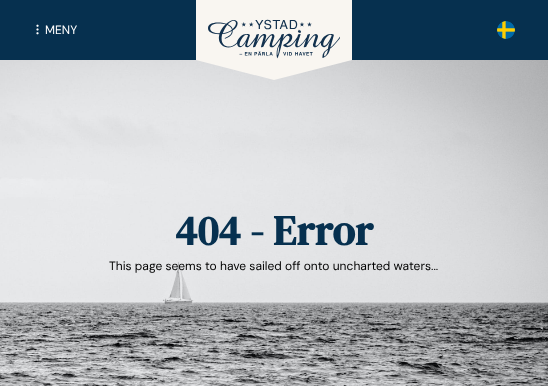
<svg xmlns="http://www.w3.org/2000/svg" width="548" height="386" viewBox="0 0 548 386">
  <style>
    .t1 { font: 12px DM Sans; fill: #fff; }
    .t2 { font: bold 42px DM Serif Text; fill: #06304f; }
    .t3 { font: 12px DM Sans; fill: #000; }
  </style>
  <rect width="100%" height="100%" fill="#fff"/>
  <rect x="0" y="0" width="548" height="60" fill="#06304f"/>
  <image x="36" y="24" width="3" height="11" href="images/1.png"/>
  <text x="45" y="34" class="t1">MENY</text>
  <rect x="196" y="0" width="156" height="60" fill="#f9f6f1"/>
  <image x="208" y="19" width="132" height="40" href="images/2.png"/>
  <image x="0" y="60" width="548" height="326" href="images/4.png"/>
  <path d="M196 60L274 80L352 60Z" fill="#f9f6f1"/>
  <image x="497" y="21" width="18" height="18" href="images/3.png"/>
  <text x="175" y="245" class="t2">404 - Error</text>
  <text x="109" y="270" class="t3">This page seems to have sailed off onto uncharted waters...</text>
</svg>
